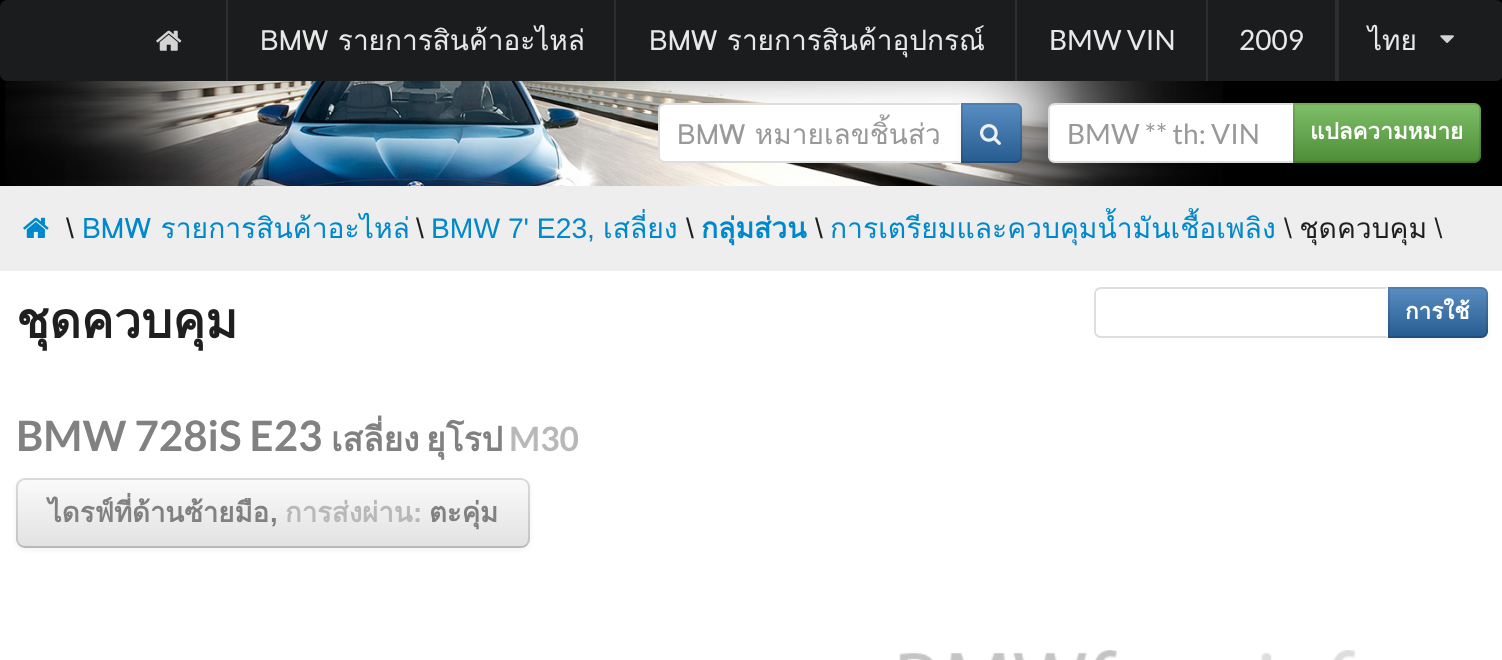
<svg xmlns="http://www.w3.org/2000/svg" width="1502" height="660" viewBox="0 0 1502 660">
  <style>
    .t1 { font: 28px Loma; fill: #e8e8e8; }
    .t2 { font: 28px Lato; fill: #e8e8e8; }
    .t3 { font: 28px Loma; fill: #999; }
    .t4 { font: 28px Lato; fill: #999; }
    .t5 { font: bold 22.5px Loma; fill: #fff; }
    .t6 { font: 28.25px Liberation Sans; fill: #1f1f1f; }
    .t7 { font: 28.25px Loma; fill: #08c; }
    .t8 { font: 28.25px Liberation Sans; fill: #08c; }
    .t9 { font: bold 28.25px Loma; fill: #08c; }
    .t10 { font: 28.25px Loma; fill: #1f1f1f; }
    .t11 { font: bold 49px Loma; fill: #1f1f1f; }
    .t12 { font: bold 42px Lato; fill: #818181; }
    .t13 { font: bold 33.5px Loma; fill: #818181; }
    .t14 { font: bold 33.5px Lato; fill: #b8b8b8; }
    .t15 { font: bold 27.5px Loma; fill: #818181; }
    .t16 { font: bold 27.5px Liberation Sans; fill: #818181; }
    .t17 { font: bold 27.5px Loma; fill: #b8b8b8; }
    .t18 { font: bold 27.5px Liberation Sans; fill: #b8b8b8; }
  </style>
  <defs>
    <linearGradient id="g1" gradientUnits="userSpaceOnUse" x1="991" y1="103" x2="991" y2="163"><stop offset="0" stop-color="#fff" stop-opacity="0.2"/><stop offset="1" stop-color="#000" stop-opacity="0.2"/></linearGradient>
    <linearGradient id="g2" gradientUnits="userSpaceOnUse" x1="1387" y1="103" x2="1387" y2="163"><stop offset="0" stop-color="#fff" stop-opacity="0.2"/><stop offset="1" stop-color="#000" stop-opacity="0.2"/></linearGradient>
    <linearGradient id="g3" gradientUnits="userSpaceOnUse" x1="1438" y1="287" x2="1438" y2="338"><stop offset="0" stop-color="#fff" stop-opacity="0.2"/><stop offset="1" stop-color="#000" stop-opacity="0.2"/></linearGradient>
    <linearGradient id="g4" gradientUnits="userSpaceOnUse" x1="273" y1="478" x2="273" y2="548"><stop offset="0" stop-color="#fbfbfb"/><stop offset="1" stop-color="#e1e1e1"/></linearGradient>
  </defs>
  <rect width="100%" height="100%" fill="#000"/>
  <image x="5" y="0" width="1218" height="186" href="images/1.png"/>
  <rect x="0" y="0" width="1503" height="81" rx="7" fill="#1b1c1d"/>
  <image x="156" y="30" width="26" height="21" href="images/2.png"/>
  <rect x="226" y="0" width="2" height="81" fill="#2d2e2f"/>
  <text x="260" y="50" class="t1">BMW รายการสินค้าอะไหล่</text>
  <rect x="614" y="0" width="2" height="81" fill="#2d2e2f"/>
  <text x="649" y="50" class="t1">BMW รายการสินค้าอุปกรณ์</text>
  <rect x="1015" y="0" width="2" height="81" fill="#2d2e2f"/>
  <text x="1049" y="50" class="t2">BMW VIN</text>
  <rect x="1206" y="0" width="2" height="81" fill="#2d2e2f"/>
  <text x="1239" y="50" class="t2">2009</text>
  <rect x="1335" y="0" width="4" height="81" fill="#2d2e2f"/>
  <text x="1368" y="50" class="t1">ไทย</text>
  <image x="1440" y="35" width="14" height="8" href="images/3.png"/>
  <path d="M665 103H961V163H665C661 163 658 160 658 156V110C658 106 661 103 665 103Z" fill="#fff"/>
  <path d="M665 105C663 105 662 106 661 107L660 105L663 103H961L959 105Z" fill="#22242626"/>
  <path d="M961 163H663L660 161L661 159C662 160 663 161 665 161H959Z" fill="#22242626"/>
  <path d="M658 110V156C658 158 659 160 660 161L661 159C660 159 660 157 660 156V110C660 109 660 107 661 107L660 105C659 106 658 108 658 110Z" fill="#22242626"/>
  <text x="677" y="144" class="t3">BMW หมายเลขชิ้นส่ว</text>
  <rect x="961" y="105" width="61" height="60" rx="7" fill="#0000000d" filter="blur(2.5px)"/>
  <path d="M961 103H1015C1019 103 1022 106 1022 110V156C1022 160 1019 163 1015 163H961Z" fill="#3072b3"/>
  <path d="M961 103H1015C1019 103 1022 106 1022 110V156C1022 160 1019 163 1015 163H961Z" fill="url(#g1)"/>
  <path d="M962 104H1015C1018.5 104 1021 106.5 1021 110V156C1021 159.5 1018.5 162 1015 162H962Z" fill="none" stroke="#0000001a" stroke-width="2"/>
  <path d="M961 161V163H1015C1019 163 1022 160 1022 156V154C1022 158 1019 161 1015 161Z" fill="#0000000d"/>
  <image x="980" y="124" width="21" height="21" href="images/4.png"/>
  <path d="M1055 103H1293V163H1055C1051 163 1048 160 1048 156V110C1048 106 1051 103 1055 103Z" fill="#fff"/>
  <path d="M1055 105C1054 105 1052 106 1051 106L1050 105L1053 103H1293L1292 105Z" fill="#22242626"/>
  <path d="M1053 163L1050 161L1051 160C1052 160 1054 161 1055 161H1292L1293 163Z" fill="#22242626"/>
  <path d="M1048 108L1050 105L1051 106C1050 107 1050 108 1050 110V156C1050 158 1050 159 1051 160L1050 161L1048 158Z" fill="#22242626"/>
  <text x="1067" y="144" class="t4">BMW ** th: VIN</text>
  <path d="M1293 103H1474C1478 103 1481 106 1481 110V156C1481 160 1478 163 1474 163H1293Z" fill="#60b044"/>
  <path d="M1293 103H1474C1478 103 1481 106 1481 110V156C1481 160 1478 163 1474 163H1293Z" fill="url(#g2)"/>
  <path d="M1294 104H1474C1477.5 104 1480 106.5 1480 110V156C1480 159.5 1477.5 162 1474 162H1294Z" fill="none" stroke="#0000001a" stroke-width="2"/>
  <path d="M1293 161V163H1474C1478 163 1481 160 1481 156V110C1481 108 1480 107 1479 105L1480 108V154C1480 158 1477 161 1474 161Z" fill="#0000000d"/>
  <text x="1310" y="139" class="t5">แปลความหมาย</text>
  <rect x="0" y="186" width="1502" height="85" fill="#eee"/>
  <image x="23" y="217" width="26" height="21" href="images/5.png"/>
  <text x="66" y="238" class="t6">\</text>
  <text x="82" y="238" class="t7">BMW รายการสินค้าอะไหล่</text>
  <text x="416" y="238" class="t6">\</text>
  <text x="431" y="238" class="t8">BMW 7' E23,</text>
  <text x="603" y="238" class="t7">เสลี่ยง</text>
  <text x="686" y="238" class="t6">\</text>
  <text x="701" y="238" class="t9">กลุ่มส่วน</text>
  <text x="815" y="238" class="t6">\</text>
  <text x="830" y="238" class="t7">การเตรียมและควบคุมน้ำมันเชื้อเพลิง</text>
  <text x="1284" y="238" word-spacing="-2" class="t10">\ ชุดควบคุม \</text>
  <rect x="0" y="271" width="1502" height="389" fill="#fff"/>
  <text x="16" y="338" class="t11">ชุดควบคุม</text>
  <path d="M1101 287C1099 287 1097 288 1096 289L1097 291C1098 290 1099 289 1101 289H1386L1388 287Z" fill="#dedede"/>
  <path d="M1388 338H1099L1096 336L1097 334C1098 335 1099 336 1101 336H1386Z" fill="#dedede"/>
  <path d="M1096 289C1095 290 1094 292 1094 294V331C1094 333 1095 335 1096 336L1097 334C1096 334 1096 332 1096 331V294C1096 293 1096 291 1097 291Z" fill="#22242626"/>
  <rect x="1388" y="289" width="100" height="51" rx="7" fill="#0000000d" filter="blur(2.5px)"/>
  <path d="M1388 287H1481C1485 287 1488 290 1488 294V331C1488 335 1485 338 1481 338H1388Z" fill="#3072b3"/>
  <path d="M1388 287H1481C1485 287 1488 290 1488 294V331C1488 335 1485 338 1481 338H1388Z" fill="url(#g3)"/>
  <path d="M1389 288H1481C1484.5 288 1487 290.5 1487 294V331C1487 334.5 1484.5 337 1481 337H1389Z" fill="none" stroke="#0000001a" stroke-width="2"/>
  <path d="M1388 336V338H1481C1485 338 1488 335 1488 331V329C1488 333 1484 336 1480 336Z" fill="#0000000d"/>
  <text x="1405" y="319" class="t5">การใช้</text>
  <text x="16" y="451" class="t12">BMW 728iS E23</text>
  <text x="331" y="451" class="t13">เสลี่ยง</text>
  <text x="426" y="451" class="t13">ยุโรป</text>
  <text x="509" y="451" class="t14">M30</text>
  <rect x="16" y="480" width="514" height="70" rx="9" fill="#0000000d" filter="blur(2.5px)"/>
  <rect x="16" y="478" width="514" height="70" rx="9" fill="url(#g4)"/>
  <rect x="17" y="479" width="512" height="68" rx="8" fill="none" stroke="#00000021" stroke-width="2"/>
  <path d="M16 538C16 543 19 548 25 548H521C527 548 530 543 530 538C530 542 527 546 522 546H24C19 546 16 542 16 538Z" fill="#0000000d"/>
  <text x="48" y="522" class="t15">ไดรฟ์ที่ด้านซ้ายมือ</text>
  <text x="270" y="522" class="t16">,</text>
  <text x="285" y="522" class="t17">การส่งผ่าน</text>
  <text x="413" y="522" class="t18">:</text>
  <text x="429" y="522" class="t15">ตะคุ่ม</text>
  <image x="899" y="650" width="457" height="10" href="images/6.png"/>
</svg>
